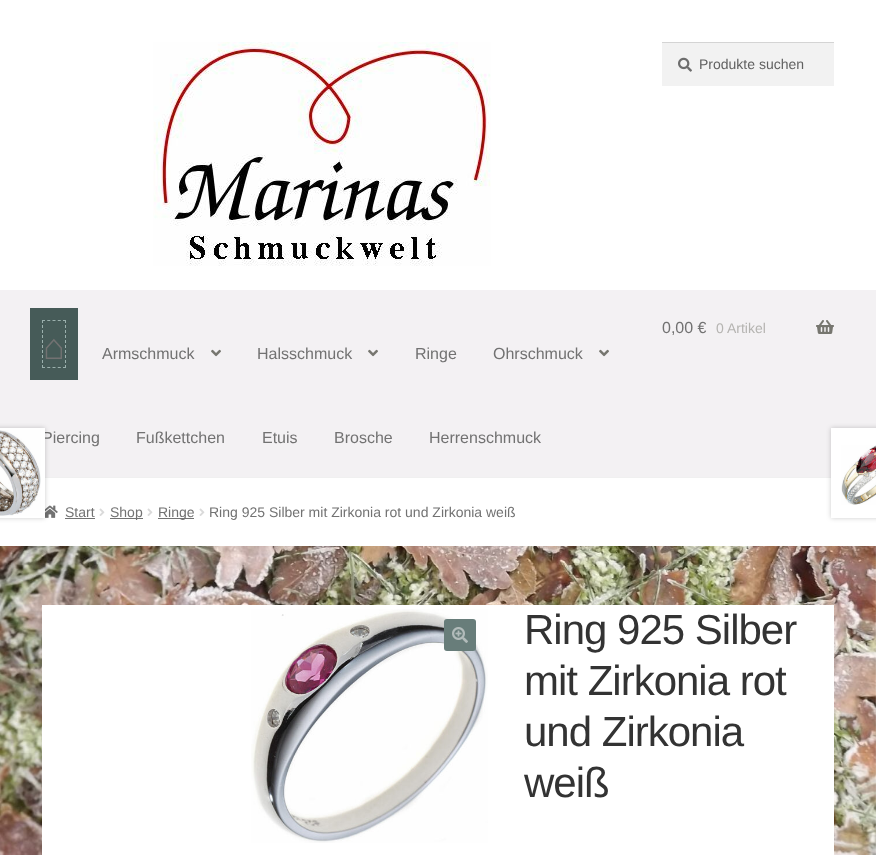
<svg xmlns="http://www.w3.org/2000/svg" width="876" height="855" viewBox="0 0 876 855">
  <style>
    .t1 { font: 14px Liberation Sans; fill: #616161; }
    .t2 { font: 16px Liberation Sans; fill: #727272; }
    .t3 { font: 14px Liberation Sans; fill: #b5b4b1; }
    .t4 { font: 36px Liberation Sans; fill: #727272; }
    .t5 { font: 14px Liberation Sans; fill: #727272; }
    .t6 { font: 42px Liberation Sans; letter-spacing: -1px; fill: #333; }
  </style>
  <rect width="100%" height="100%" fill="#fff"/>
  <image x="0" y="546" width="876" height="309" href="images/1.png"/>
  <rect x="45" y="477" width="786" height="1" fill="#f0f0f0"/>
  <image x="153" y="42" width="338" height="224" href="images/2.png"/>
  <rect x="662" y="43" width="172" height="43" fill="#f2f2f2"/>
  <image x="678" y="57" width="14" height="15" href="images/3.png"/>
  <rect x="662" y="42" width="172" height="1" fill="#d4d4d4"/>
  <text x="699" y="69" class="t1">Produkte suchen</text>
  <rect x="0" y="290" width="876" height="187" fill="#f3f1f3"/>
  <text x="662" y="333" class="t2">0,00 €</text>
  <text x="716" y="333" class="t3">0 Artikel</text>
  <image x="816" y="320" width="18" height="14" href="images/4.png"/>
  <rect x="36" y="314" width="36" height="60" fill="none" stroke="#465b58" stroke-width="12"/>
  <rect x="42" y="320" width="24" height="48" fill="#465b58"/>
  <text x="43" y="359" class="t4">⌂</text>
  <path d="M42 320.5H66" fill="none" stroke="#9bb0ad" stroke-dasharray="3 2.25"/>
  <path d="M65.5 320V368" fill="none" stroke="#9bb0ad" stroke-dasharray="3 2"/>
  <path d="M42 367.5H66" fill="none" stroke="#9bb0ad" stroke-dasharray="3 2.25"/>
  <path d="M42.5 320V368" fill="none" stroke="#9bb0ad" stroke-dasharray="3 2"/>
  <text x="102" y="359" class="t2">Armschmuck</text>
  <image x="211" y="349" width="10" height="8" href="images/5.png"/>
  <text x="257" y="359" class="t2">Halsschmuck</text>
  <image x="368" y="349" width="10" height="8" href="images/5.png"/>
  <text x="415" y="359" class="t2">Ringe</text>
  <text x="493" y="359" class="t2">Ohrschmuck</text>
  <image x="599" y="349" width="10" height="8" href="images/5.png"/>
  <text x="42" y="443" class="t2">Piercing</text>
  <text x="136" y="443" class="t2">Fußkettchen</text>
  <text x="262" y="443" class="t2">Etuis</text>
  <text x="334" y="443" class="t2">Brosche</text>
  <text x="429" y="443" class="t2">Herrenschmuck</text>
  <image x="45" y="505" width="13" height="13" href="images/6.png"/>
  <text x="65" y="517" class="t5">Start</text>
  <rect x="65" y="518" width="30" height="1" fill="#727272"/>
  <image x="99" y="508" width="6" height="8" href="images/7.png"/>
  <rect x="110" y="518" width="33" height="1" fill="#727272"/>
  <text x="110" y="517" class="t5">Shop</text>
  <image x="147" y="508" width="6" height="8" href="images/7.png"/>
  <rect x="158" y="518" width="36" height="1" fill="#727272"/>
  <text x="158" y="517" class="t5">Ringe</text>
  <image x="199" y="508" width="6" height="8" href="images/7.png"/>
  <text x="209" y="517" class="t5">Ring 925 Silber mit Zirkonia rot und Zirkonia weiß</text>
  <rect x="42" y="605" width="792" height="250" fill="#fff"/>
  <rect x="-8" y="428" width="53" height="90" fill="#00000033" filter="blur(2.5px)"/>
  <rect x="0" y="428" width="45" height="90" fill="#fff"/>
  <image x="0" y="430" width="41" height="86" href="images/8.png"/>
  <rect x="831" y="428" width="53" height="90" fill="#00000033" filter="blur(2.5px)"/>
  <rect x="831" y="428" width="45" height="90" fill="#fff"/>
  <image x="841" y="445" width="35" height="60" href="images/9.png"/>
  <image x="251" y="609" width="237" height="234" href="images/10.png"/>
  <rect x="444" y="619" width="32" height="32" rx="3" fill="#687d7a"/>
  <image x="452" y="627" width="16" height="16" href="images/11.png"/>
  <text x="524" y="644" class="t6">Ring 925 Silber</text>
  <text x="524" y="695" class="t6">mit Zirkonia rot</text>
  <text x="524" y="746" class="t6">und Zirkonia</text>
  <text x="524" y="797" class="t6">weiß</text>
</svg>
